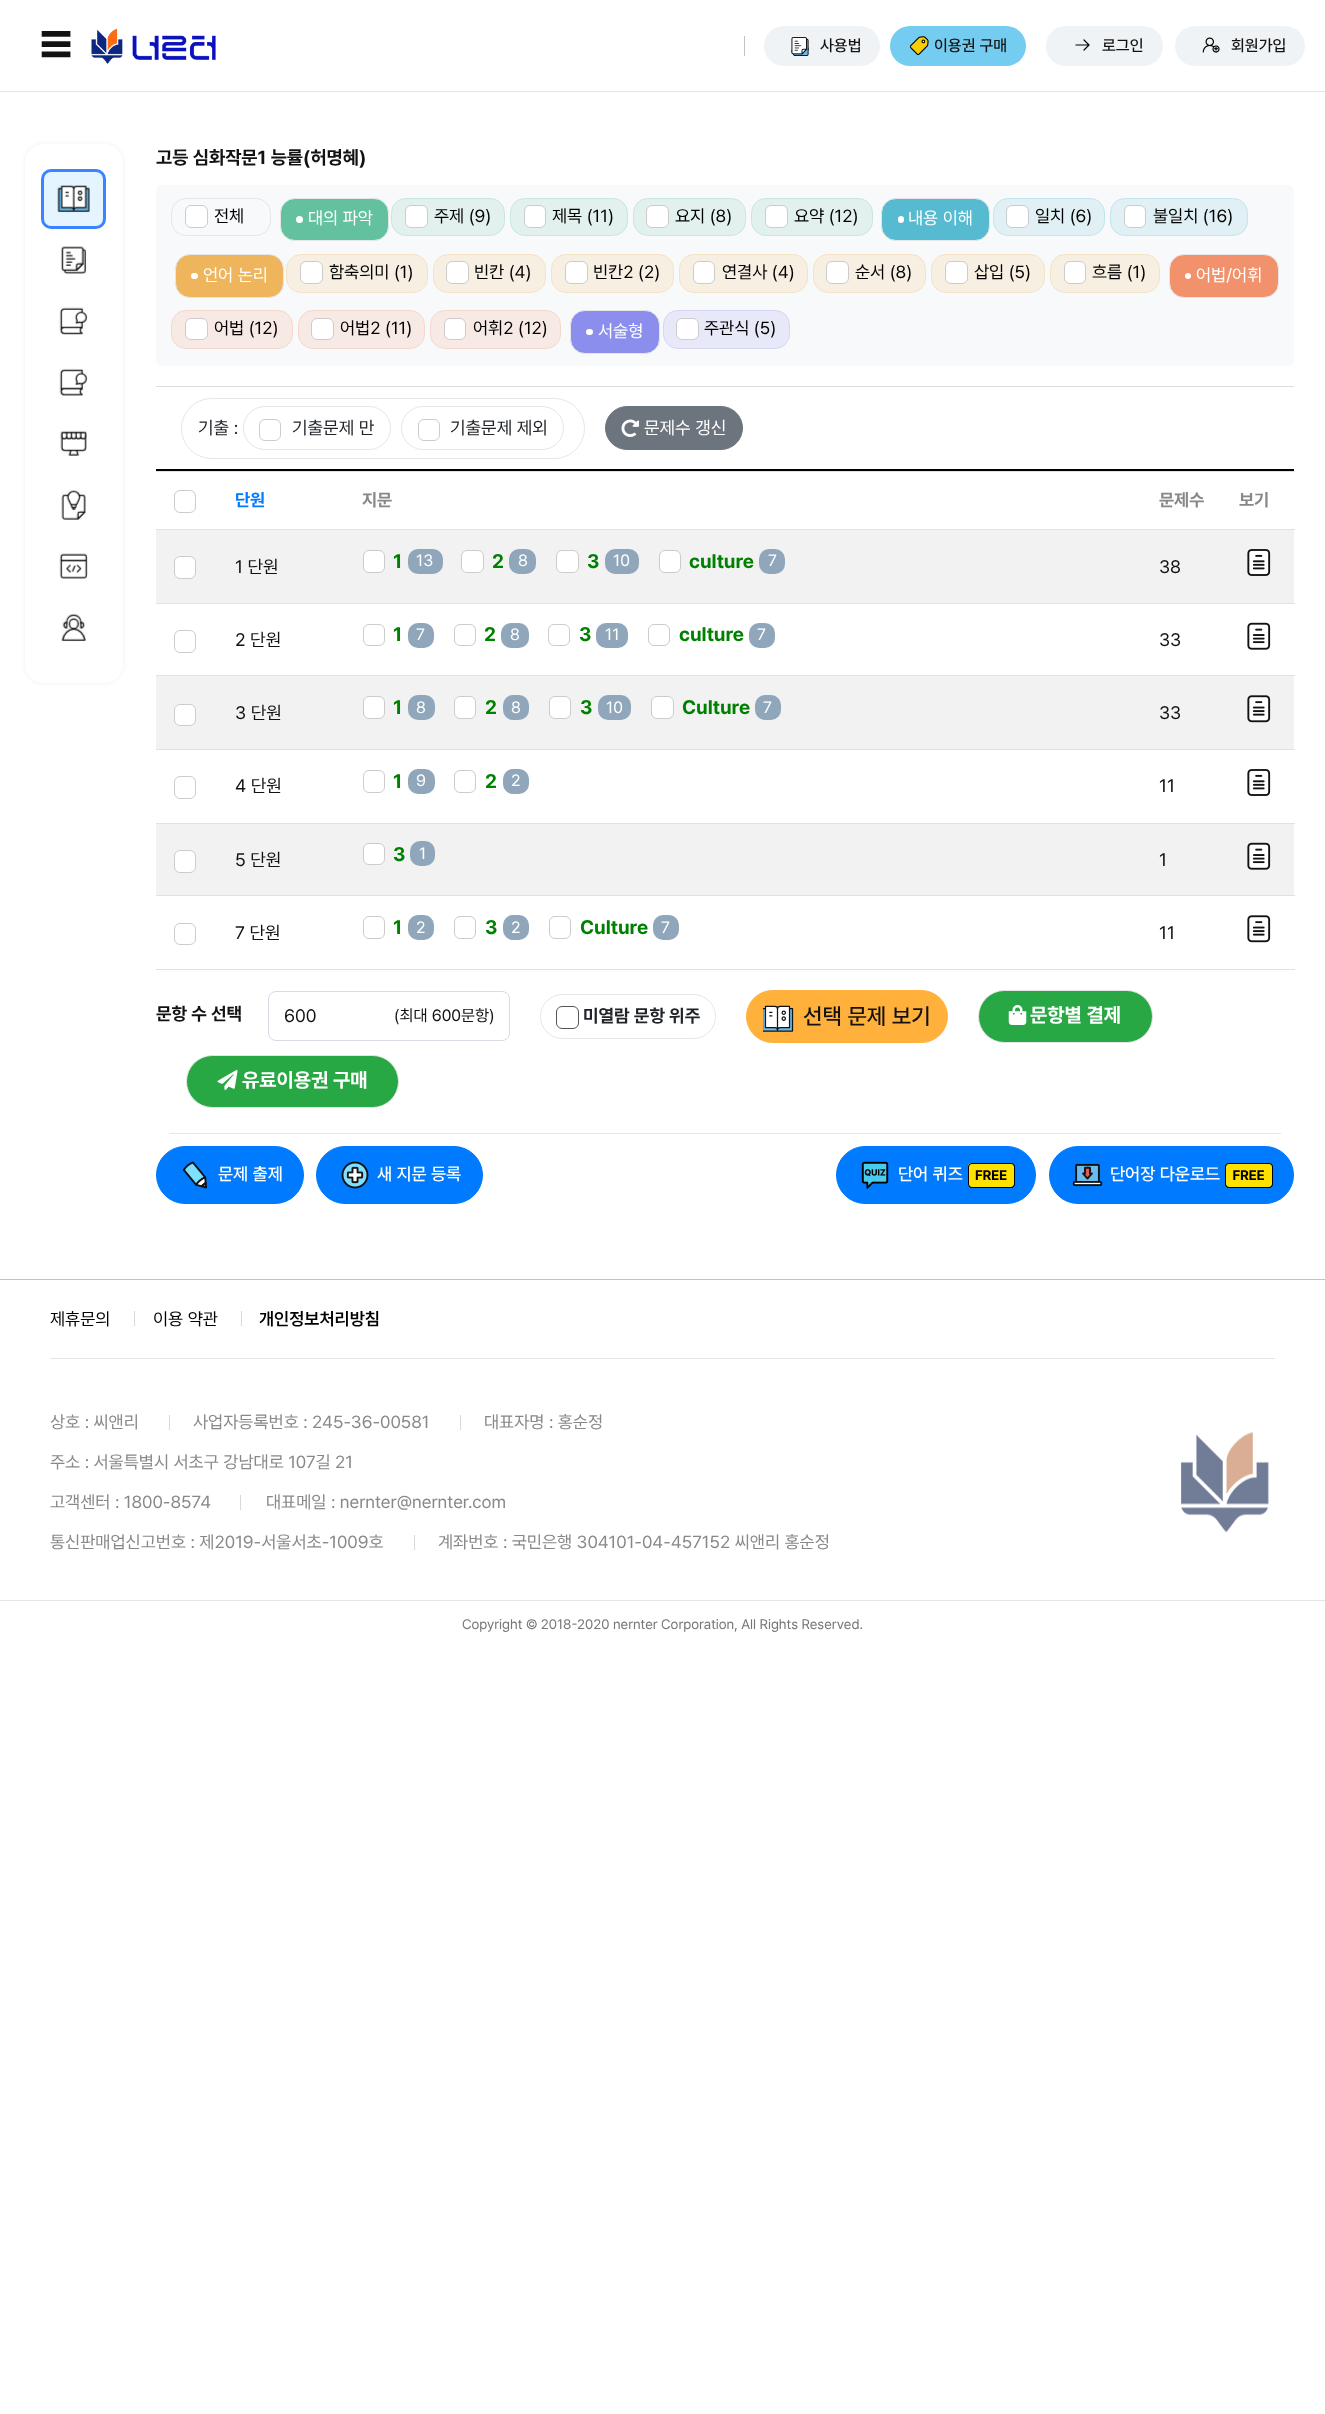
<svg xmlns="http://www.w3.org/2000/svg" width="1325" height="2414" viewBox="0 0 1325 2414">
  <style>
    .t1 { font: bold 31px WenQuanYi Zen Hei; fill: #121212; }
    .t2 { font: 500 16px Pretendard; fill: #121212; }
    .t3 { font: bold 18.75px Pretendard; fill: #121212; }
    .t4 { font: 17.5px Pretendard; fill: #000; }
    .t5 { font: 17.5px Pretendard; fill: #fff; }
    .t6 { font: 18px Pretendard; fill: #212529; }
    .t7 { font: 18px Pretendard; fill: #fff; }
    .t8 { font: bold 17.5px Pretendard; fill: #007bff; }
    .t9 { font: bold 17.5px Pretendard; fill: #888; }
    .t10 { font: 18px Pretendard; fill: #121212; }
    .t11 { font: bold 19.5px Pretendard; fill: #008000; }
    .t12 { font: 16.25px Pretendard; fill: #fff; }
    .t13 { font: bold 18px Pretendard; fill: #121212; }
    .t14 { font: 16.25px Pretendard; fill: #121212; }
    .t15 { font: bold 18px Pretendard; fill: #212529; }
    .t16 { font: 500 22.5px Pretendard; fill: #121212; }
    .t17 { font: bold 20px Pretendard; fill: #fff; }
    .t18 { font: 500 17.5px Pretendard; fill: #fff; }
    .t19 { font: 600 17.5px Pretendard; fill: #000; }
    .t20 { font: 17.5px Pretendard; fill: #888; }
    .t21 { font: 13.75px Pretendard; fill: #777; }
  </style>
  <rect width="100%" height="100%" fill="#fff"/>
  <rect x="0" y="91" width="1325" height="1" fill="#e6e6e6"/>
  <text x="40" y="56" class="t1">☰</text>
  <image x="91" y="28" width="125" height="36" href="images/1.png"/>
  <rect x="744" y="36" width="1" height="20" fill="#c2c2c2"/>
  <rect x="764" y="26" width="116" height="40" rx="20" fill="#f0f3f5"/>
  <image x="791" y="37" width="18" height="19" href="images/2.png"/>
  <text x="820" y="51" class="t2">사용법</text>
  <rect x="890" y="26" width="136" height="40" rx="20" fill="#74cdf1"/>
  <image x="910" y="36" width="19" height="19" href="images/3.png"/>
  <text x="934" y="51" class="t2">이용권 구매</text>
  <rect x="1046" y="26" width="117" height="40" rx="20" fill="#f0f3f5"/>
  <path d="M1076 45H1089M1089 45L1084 40M1089 45L1084 50" fill="none" stroke="#000" stroke-width="1.2" stroke-linecap="round" stroke-linejoin="round"/>
  <text x="1102" y="51" class="t2">로그인</text>
  <rect x="1175" y="26" width="130" height="40" rx="20" fill="#f0f3f5"/>
  <image x="1202" y="37" width="18" height="16" href="images/4.png"/>
  <text x="1231" y="51" class="t2">회원가입</text>
  <rect x="25" y="144" width="98" height="539" rx="19" fill="#0000000f" filter="blur(2.5px)"/>
  <rect x="25" y="144" width="98" height="539" rx="19" fill="#fff"/>
  <rect x="42.5" y="170.5" width="62" height="57" rx="8.5" fill="#e4f5ff" stroke="#3b84ff" stroke-width="3"/>
  <image x="57" y="185" width="33" height="28" href="images/5.png"/>
  <image x="60" y="246" width="27" height="28" href="images/6.png"/>
  <image x="59" y="307" width="29" height="28" href="images/7.png"/>
  <image x="59" y="368" width="29" height="28" href="images/8.png"/>
  <image x="60" y="430" width="27" height="26" href="images/9.png"/>
  <image x="61" y="490" width="25" height="30" href="images/10.png"/>
  <image x="59" y="553" width="29" height="26" href="images/11.png"/>
  <image x="61" y="613" width="25" height="29" href="images/12.png"/>
  <text x="156" y="164" class="t3">고등 심화작문1 능률(허명혜)</text>
  <rect x="156" y="185" width="1138" height="181" rx="6" fill="#f8f9fa"/>
  <rect x="171.5" y="198.5" width="99" height="37" rx="14.5" fill="none" stroke="#e6e6e6"/>
  <rect x="185.5" y="205.5" width="22" height="22" rx="5.5" fill="#fff" stroke="#ccc"/>
  <text x="214" y="222" class="t4">전체</text>
  <rect x="280.5" y="198.5" width="108" height="42" rx="14.5" fill="#63c1a0" stroke="#e6e6e6"/>
  <circle cx="299.5" cy="219.5" r="3.5" fill="#fff"/>
  <text x="308" y="224" class="t5">대의 파악</text>
  <rect x="391" y="198" width="114" height="38" rx="15" fill="#e2f1ed"/>
  <rect x="391.5" y="198.5" width="113" height="37" rx="14.5" fill="none" stroke="#63c1a033"/>
  <rect x="405.5" y="205.5" width="22" height="22" rx="5.5" fill="#fff" stroke="#ccc"/>
  <text x="434" y="222" class="t4">주제 (9)</text>
  <rect x="510" y="198" width="118" height="38" rx="15" fill="#e2f1ed"/>
  <rect x="510.5" y="198.5" width="117" height="37" rx="14.5" fill="none" stroke="#63c1a033"/>
  <rect x="524.5" y="205.5" width="21" height="22" rx="5.5" fill="#fff" stroke="#ccc"/>
  <text x="552" y="222" class="t4">제목 (11)</text>
  <rect x="633" y="198" width="113" height="38" rx="15" fill="#e2f1ed"/>
  <rect x="633.5" y="198.5" width="112" height="37" rx="14.5" fill="none" stroke="#63c1a033"/>
  <rect x="646.5" y="205.5" width="22" height="22" rx="5.5" fill="#fff" stroke="#ccc"/>
  <text x="675" y="222" class="t4">요지 (8)</text>
  <rect x="751" y="198" width="122" height="38" rx="15" fill="#e2f1ed"/>
  <rect x="751.5" y="198.5" width="121" height="37" rx="14.5" fill="none" stroke="#63c1a033"/>
  <rect x="765.5" y="205.5" width="22" height="22" rx="5.5" fill="#fff" stroke="#ccc"/>
  <text x="794" y="222" class="t4">요약 (12)</text>
  <rect x="881.5" y="198.5" width="108" height="42" rx="14.5" fill="#56bbd0" stroke="#e6e6e6"/>
  <rect x="898" y="216" width="6" height="7" rx="3" fill="#fff"/>
  <text x="908" y="224" class="t5">내용 이해</text>
  <rect x="993" y="198" width="112" height="38" rx="15" fill="#e0f0f4"/>
  <rect x="993.5" y="198.5" width="111" height="37" rx="14.5" fill="none" stroke="#56bbd033"/>
  <rect x="1006.5" y="205.5" width="22" height="22" rx="5.5" fill="#fff" stroke="#ccc"/>
  <text x="1035" y="222" class="t4">일치 (6)</text>
  <rect x="1110" y="198" width="138" height="38" rx="15" fill="#e0f0f4"/>
  <rect x="1110.5" y="198.5" width="137" height="37" rx="14.5" fill="none" stroke="#56bbd033"/>
  <rect x="1124.5" y="205.5" width="21" height="22" rx="5.5" fill="#fff" stroke="#ccc"/>
  <text x="1153" y="222" class="t4">불일치 (16)</text>
  <rect x="175.5" y="254.5" width="108" height="43" rx="14.5" fill="#efb55d" stroke="#e6e6e6"/>
  <rect x="191" y="273" width="7" height="6" rx="3" fill="#fff"/>
  <text x="203" y="281" class="t5">언어 논리</text>
  <rect x="286" y="254" width="142" height="39" rx="15" fill="#f7efe2"/>
  <rect x="286.5" y="254.5" width="141" height="38" rx="14.5" fill="none" stroke="#efb55d33"/>
  <rect x="300.5" y="261.5" width="22" height="22" rx="5.5" fill="#fff" stroke="#ccc"/>
  <text x="329" y="278" class="t4">함축의미 (1)</text>
  <rect x="433" y="254" width="113" height="39" rx="15" fill="#f7efe2"/>
  <rect x="433.5" y="254.5" width="112" height="38" rx="14.5" fill="none" stroke="#efb55d33"/>
  <rect x="446.5" y="261.5" width="22" height="22" rx="5.5" fill="#fff" stroke="#ccc"/>
  <text x="474" y="278" class="t4">빈칸 (4)</text>
  <rect x="551" y="254" width="123" height="39" rx="15" fill="#f7efe2"/>
  <rect x="551.5" y="254.5" width="122" height="38" rx="14.5" fill="none" stroke="#efb55d33"/>
  <rect x="565.5" y="261.5" width="22" height="22" rx="5.5" fill="#fff" stroke="#ccc"/>
  <text x="593" y="278" class="t4">빈칸2 (2)</text>
  <rect x="679" y="254" width="129" height="39" rx="15" fill="#f7efe2"/>
  <rect x="679.5" y="254.5" width="128" height="38" rx="14.5" fill="none" stroke="#efb55d33"/>
  <rect x="693.5" y="261.5" width="21" height="22" rx="5.5" fill="#fff" stroke="#ccc"/>
  <text x="722" y="278" class="t4">연결사 (4)</text>
  <rect x="813" y="254" width="113" height="39" rx="15" fill="#f7efe2"/>
  <rect x="813.5" y="254.5" width="112" height="38" rx="14.5" fill="none" stroke="#efb55d33"/>
  <rect x="826.5" y="261.5" width="22" height="22" rx="5.5" fill="#fff" stroke="#ccc"/>
  <text x="855" y="278" class="t4">순서 (8)</text>
  <rect x="931" y="254" width="114" height="39" rx="15" fill="#f7efe2"/>
  <rect x="931.5" y="254.5" width="113" height="38" rx="14.5" fill="none" stroke="#efb55d33"/>
  <rect x="945.5" y="261.5" width="22" height="22" rx="5.5" fill="#fff" stroke="#ccc"/>
  <text x="974" y="278" class="t4">삽입 (5)</text>
  <rect x="1050" y="254" width="110" height="39" rx="15" fill="#f7efe2"/>
  <rect x="1050.5" y="254.5" width="109" height="38" rx="14.5" fill="none" stroke="#efb55d33"/>
  <rect x="1064.5" y="261.5" width="21" height="22" rx="5.5" fill="#fff" stroke="#ccc"/>
  <text x="1092" y="278" class="t4">흐름 (1)</text>
  <rect x="1169.5" y="254.5" width="109" height="43" rx="14.5" fill="#f2926c" stroke="#e6e6e6"/>
  <circle cx="1188" cy="276" r="3" fill="#fff"/>
  <text x="1196" y="281" class="t5">어법/어휘</text>
  <rect x="171" y="310" width="122" height="39" rx="15" fill="#f7eae5"/>
  <rect x="171.5" y="310.5" width="121" height="38" rx="14.5" fill="none" stroke="#f2926c33"/>
  <rect x="185.5" y="318.5" width="22" height="21" rx="5.5" fill="#fff" stroke="#ccc"/>
  <text x="214" y="334" class="t4">어법 (12)</text>
  <rect x="298" y="310" width="127" height="39" rx="15" fill="#f7eae5"/>
  <rect x="298.5" y="310.5" width="126" height="38" rx="14.5" fill="none" stroke="#f2926c33"/>
  <rect x="311.5" y="318.5" width="22" height="21" rx="5.5" fill="#fff" stroke="#ccc"/>
  <text x="340" y="334" class="t4">어법2 (11)</text>
  <rect x="430" y="310" width="131" height="39" rx="15" fill="#f7eae5"/>
  <rect x="430.5" y="310.5" width="130" height="38" rx="14.5" fill="none" stroke="#f2926c33"/>
  <rect x="444.5" y="318.5" width="21" height="21" rx="5.5" fill="#fff" stroke="#ccc"/>
  <text x="473" y="334" class="t4">어휘2 (12)</text>
  <rect x="570.5" y="310.5" width="89" height="43" rx="14.5" fill="#8b8eed" stroke="#e6e6e6"/>
  <rect x="586" y="329" width="7" height="6" rx="3" fill="#fff"/>
  <text x="598" y="337" class="t5">서술형</text>
  <rect x="663" y="310" width="127" height="39" rx="15" fill="#e8e9f8"/>
  <rect x="663.5" y="310.5" width="126" height="38" rx="14.5" fill="none" stroke="#8b8eed33"/>
  <rect x="676.5" y="318.5" width="22" height="21" rx="5.5" fill="#fff" stroke="#ccc"/>
  <text x="704" y="334" class="t4">주관식 (5)</text>
  <rect x="156" y="386" width="1138" height="1" fill="#ddd"/>
  <rect x="181.5" y="398.5" width="403" height="60" rx="30" fill="none" stroke="#e6e6e6"/>
  <text x="198" y="434" class="t6">기출 :</text>
  <rect x="243.5" y="406.5" width="147" height="43" rx="21.5" fill="none" stroke="#e6e6e6"/>
  <rect x="259.5" y="419.5" width="21" height="21" rx="5.5" fill="none" stroke="#ccc"/>
  <text x="292" y="434" class="t6">기출문제 만</text>
  <rect x="401.5" y="406.5" width="162" height="43" rx="21.5" fill="none" stroke="#e6e6e6"/>
  <rect x="418.5" y="419.5" width="21" height="21" rx="5.5" fill="none" stroke="#ccc"/>
  <text x="450" y="434" class="t6">기출문제 제외</text>
  <rect x="605.5" y="406.5" width="137" height="43" rx="21.5" fill="#6c757d" stroke="#6c757d"/>
  <image x="621" y="419" width="18" height="18" href="images/13.png"/>
  <text x="644" y="434" class="t7">문제수 갱신</text>
  <rect x="156" y="469" width="1138" height="2" fill="#000"/>
  <rect x="174.5" y="490.5" width="21" height="22" rx="5.5" fill="none" stroke="#ccc"/>
  <text x="235" y="506" class="t8">단원</text>
  <text x="362" y="506" class="t9">지문</text>
  <text x="1159" y="506" class="t9">문제수</text>
  <rect x="156" y="471" width="1139" height="1" fill="#dee2e6"/>
  <text x="1239" y="506" class="t9">보기</text>
  <rect x="156" y="530" width="1138" height="73" fill="#f2f2f2"/>
  <rect x="156" y="529" width="1139" height="1" fill="#dee2e6"/>
  <rect x="156" y="603" width="1139" height="1" fill="#e2e2e2"/>
  <image x="1247" y="549" width="24" height="27" href="images/14.png"/>
  <rect x="174.5" y="556.5" width="21" height="22" rx="5.5" fill="#fff" stroke="#ccc"/>
  <text x="235" y="573" class="t10">1 단원</text>
  <rect x="363.5" y="550.5" width="21" height="22" rx="5.5" fill="#fff" stroke="#ccc"/>
  <text x="393" y="568" class="t11">1</text>
  <rect x="408" y="549" width="35" height="25" rx="10" fill="#90a7bb"/>
  <text x="416" y="566" class="t12">13</text>
  <rect x="461.5" y="550.5" width="22" height="22" rx="5.5" fill="#fff" stroke="#ccc"/>
  <text x="492" y="568" class="t11">2</text>
  <rect x="509" y="549" width="27" height="25" rx="10" fill="#90a7bb"/>
  <text x="518" y="566" class="t12">8</text>
  <rect x="556.5" y="550.5" width="22" height="22" rx="5.5" fill="#fff" stroke="#ccc"/>
  <text x="587" y="568" class="t11">3</text>
  <rect x="605" y="549" width="34" height="25" rx="10" fill="#90a7bb"/>
  <text x="613" y="566" class="t12">10</text>
  <rect x="659.5" y="550.5" width="21" height="22" rx="5.5" fill="#fff" stroke="#ccc"/>
  <text x="689" y="568" class="t11">culture</text>
  <rect x="759" y="549" width="26" height="25" rx="10" fill="#90a7bb"/>
  <text x="768" y="566" class="t12">7</text>
  <text x="1159" y="573" class="t10">38</text>
  <rect x="156" y="675" width="1139" height="1" fill="#e2e2e2"/>
  <image x="1247" y="622" width="24" height="28" href="images/15.png"/>
  <rect x="174.5" y="630.5" width="21" height="22" rx="5.5" fill="none" stroke="#ccc"/>
  <text x="235" y="646" class="t10">2 단원</text>
  <rect x="363.5" y="624.5" width="21" height="21" rx="5.5" fill="none" stroke="#ccc"/>
  <text x="393" y="641" class="t11">1</text>
  <rect x="408" y="623" width="26" height="25" rx="10" fill="#90a7bb"/>
  <text x="416" y="640" class="t12">7</text>
  <rect x="454.5" y="624.5" width="21" height="21" rx="5.5" fill="none" stroke="#ccc"/>
  <text x="484" y="641" class="t11">2</text>
  <rect x="501" y="623" width="28" height="25" rx="10" fill="#90a7bb"/>
  <text x="510" y="640" class="t12">8</text>
  <rect x="548.5" y="624.5" width="21" height="21" rx="5.5" fill="none" stroke="#ccc"/>
  <text x="579" y="641" class="t11">3</text>
  <rect x="596" y="623" width="32" height="25" rx="10" fill="#90a7bb"/>
  <text x="605" y="640" class="t12">11</text>
  <rect x="648.5" y="624.5" width="21" height="21" rx="5.5" fill="none" stroke="#ccc"/>
  <text x="679" y="641" class="t11">culture</text>
  <rect x="749" y="623" width="26" height="25" rx="10" fill="#90a7bb"/>
  <text x="757" y="640" class="t12">7</text>
  <text x="1159" y="646" class="t10">33</text>
  <rect x="156" y="676" width="1138" height="73" fill="#f2f2f2"/>
  <rect x="156" y="749" width="1139" height="1" fill="#e2e2e2"/>
  <image x="1247" y="695" width="24" height="28" href="images/16.png"/>
  <rect x="174.5" y="704.5" width="21" height="21" rx="5.5" fill="#fff" stroke="#ccc"/>
  <text x="235" y="719" class="t10">3 단원</text>
  <rect x="363.5" y="696.5" width="21" height="22" rx="5.5" fill="#fff" stroke="#ccc"/>
  <text x="393" y="714" class="t11">1</text>
  <rect x="408" y="695" width="27" height="25" rx="10" fill="#90a7bb"/>
  <text x="416" y="713" class="t12">8</text>
  <rect x="454.5" y="696.5" width="21" height="22" rx="5.5" fill="#fff" stroke="#ccc"/>
  <text x="485" y="714" class="t11">2</text>
  <rect x="503" y="695" width="26" height="25" rx="10" fill="#90a7bb"/>
  <text x="511" y="713" class="t12">8</text>
  <rect x="549.5" y="696.5" width="21" height="22" rx="5.5" fill="#fff" stroke="#ccc"/>
  <text x="580" y="714" class="t11">3</text>
  <rect x="598" y="695" width="33" height="25" rx="10" fill="#90a7bb"/>
  <text x="606" y="713" class="t12">10</text>
  <rect x="651.5" y="696.5" width="22" height="22" rx="5.5" fill="#fff" stroke="#ccc"/>
  <text x="682" y="714" class="t11">Culture</text>
  <rect x="755" y="695" width="26" height="25" rx="10" fill="#90a7bb"/>
  <text x="763" y="713" class="t12">7</text>
  <text x="1159" y="719" class="t10">33</text>
  <rect x="156" y="823" width="1139" height="1" fill="#e2e2e2"/>
  <image x="1247" y="769" width="24" height="27" href="images/17.png"/>
  <rect x="174.5" y="776.5" width="21" height="22" rx="5.5" fill="none" stroke="#ccc"/>
  <text x="235" y="792" class="t10">4 단원</text>
  <rect x="363.5" y="770.5" width="21" height="22" rx="5.5" fill="none" stroke="#ccc"/>
  <text x="393" y="788" class="t11">1</text>
  <rect x="408" y="769" width="27" height="25" rx="10" fill="#90a7bb"/>
  <text x="416" y="786" class="t12">9</text>
  <rect x="454.5" y="770.5" width="21" height="22" rx="5.5" fill="none" stroke="#ccc"/>
  <text x="485" y="788" class="t11">2</text>
  <rect x="503" y="769" width="26" height="25" rx="10" fill="#90a7bb"/>
  <text x="511" y="786" class="t12">2</text>
  <text x="1159" y="792" class="t10">11</text>
  <rect x="156" y="824" width="1138" height="71" fill="#f2f2f2"/>
  <rect x="156" y="895" width="1139" height="1" fill="#e2e2e2"/>
  <image x="1247" y="842" width="24" height="28" href="images/18.png"/>
  <rect x="174.5" y="850.5" width="21" height="22" rx="5.5" fill="#fff" stroke="#ccc"/>
  <text x="235" y="866" class="t10">5 단원</text>
  <rect x="363.5" y="843.5" width="21" height="21" rx="5.5" fill="#fff" stroke="#ccc"/>
  <text x="393" y="861" class="t11">3</text>
  <rect x="410" y="841" width="25" height="25" rx="10" fill="#90a7bb"/>
  <text x="419" y="859" class="t12">1</text>
  <text x="1159" y="866" class="t10">1</text>
  <rect x="156" y="969" width="1139" height="1" fill="#e2e2e2"/>
  <image x="1247" y="915" width="24" height="28" href="images/19.png"/>
  <rect x="174.5" y="923.5" width="21" height="21" rx="5.5" fill="none" stroke="#ccc"/>
  <text x="235" y="939" class="t10">7 단원</text>
  <rect x="363.5" y="916.5" width="21" height="22" rx="5.5" fill="none" stroke="#ccc"/>
  <text x="393" y="934" class="t11">1</text>
  <rect x="408" y="915" width="26" height="25" rx="10" fill="#90a7bb"/>
  <text x="416" y="933" class="t12">2</text>
  <rect x="454.5" y="916.5" width="21" height="22" rx="5.5" fill="none" stroke="#ccc"/>
  <text x="485" y="934" class="t11">3</text>
  <rect x="503" y="915" width="26" height="25" rx="10" fill="#90a7bb"/>
  <text x="511" y="933" class="t12">2</text>
  <rect x="549.5" y="916.5" width="21" height="22" rx="5.5" fill="none" stroke="#ccc"/>
  <text x="580" y="934" class="t11">Culture</text>
  <rect x="653" y="915" width="26" height="25" rx="10" fill="#90a7bb"/>
  <text x="661" y="933" class="t12">7</text>
  <text x="1159" y="939" class="t10">11</text>
  <text x="156" y="1020" class="t13">문항 수 선택</text>
  <rect x="268.5" y="991.5" width="241" height="49" rx="7.5" fill="none" stroke="#d6dbe4"/>
  <text x="284" y="1022" class="t10">600</text>
  <text x="394" y="1021" class="t14">(최대 600문항)</text>
  <rect x="540.5" y="994.5" width="175" height="44" rx="22" fill="none" stroke="#e6e6e6"/>
  <rect x="556.5" y="1006.5" width="22" height="22" rx="5.5" fill="none" stroke="#555"/>
  <text x="583" y="1022" class="t15">미열람 문항 위주</text>
  <rect x="746.5" y="990.5" width="201" height="52" rx="26" fill="#ffb13c" stroke="#ffb13c"/>
  <image x="763" y="1005" width="31" height="27" href="images/20.png"/>
  <text x="803" y="1024" class="t16">선택 문제 보기</text>
  <rect x="978.5" y="990.5" width="174" height="52" rx="26" fill="#28a745" stroke="#e6e6e6"/>
  <image x="1008" y="1005" width="19" height="20" href="images/21.png"/>
  <text x="1030" y="1022" class="t17">문항별 결제</text>
  <rect x="186.5" y="1055.5" width="212" height="52" rx="26" fill="#28a745" stroke="#e6e6e6"/>
  <image x="217" y="1070" width="21" height="20" href="images/22.png"/>
  <text x="242" y="1087" class="t17">유료이용권 구매</text>
  <rect x="169" y="1133" width="1112" height="1" fill="#e6e6e6"/>
  <rect x="156.5" y="1146.5" width="147" height="57" rx="28.5" fill="#007bff" stroke="#007bff"/>
  <image x="183" y="1161" width="24" height="28" href="images/23.png"/>
  <text x="218" y="1180" class="t18">문제 출제</text>
  <rect x="316.5" y="1146.5" width="166" height="57" rx="28.5" fill="#007bff" stroke="#007bff"/>
  <image x="341" y="1161" width="28" height="28" href="images/24.png"/>
  <text x="377" y="1180" class="t18">새 지문 등록</text>
  <rect x="836.5" y="1146.5" width="199" height="57" rx="28.5" fill="#007bff" stroke="#007bff"/>
  <image x="861" y="1161" width="28" height="28" href="images/25.png"/>
  <text x="898" y="1180" class="t18">단어 퀴즈</text>
  <image x="968" y="1163" width="47" height="25" href="images/26.png"/>
  <rect x="1049.5" y="1146.5" width="244" height="57" rx="28.5" fill="#007bff" stroke="#007bff"/>
  <image x="1072" y="1163" width="31" height="24" href="images/27.png"/>
  <text x="1110" y="1180" class="t18">단어장 다운로드</text>
  <image x="1225" y="1163" width="48" height="25" href="images/28.png"/>
  <rect x="0" y="1279" width="1325" height="1" fill="#c2c2c2"/>
  <rect x="50" y="1358" width="1225" height="1" fill="#e5e5e5"/>
  <text x="50" y="1325" class="t4">제휴문의</text>
  <rect x="134" y="1311" width="1" height="15" fill="#d9d9d9"/>
  <text x="153" y="1325" class="t4">이용 약관</text>
  <rect x="241" y="1311" width="1" height="15" fill="#d9d9d9"/>
  <text x="259" y="1325" class="t19">개인정보처리방침</text>
  <text x="50" y="1428" class="t20">상호 : 씨앤리</text>
  <rect x="169" y="1415" width="1" height="15" fill="#d9d9d9"/>
  <text x="193" y="1428" class="t20">사업자등록번호 : 245-36-00581</text>
  <rect x="460" y="1415" width="1" height="15" fill="#d9d9d9"/>
  <text x="484" y="1428" class="t20">대표자명 : 홍순정</text>
  <text x="50" y="1468" class="t20">주소 : 서울특별시 서초구 강남대로 107길 21</text>
  <text x="50" y="1508" class="t20">고객센터 : 1800-8574</text>
  <rect x="240" y="1495" width="1" height="15" fill="#d9d9d9"/>
  <text x="266" y="1508" class="t20">대표메일 : nernter@nernter.com</text>
  <text x="50" y="1548" class="t20">통신판매업신고번호 : 제2019-서울서초-1009호</text>
  <rect x="414" y="1535" width="1" height="15" fill="#d9d9d9"/>
  <text x="438" y="1548" class="t20">계좌번호 : 국민은행 304101-04-457152 씨앤리 홍순정</text>
  <image x="1181" y="1432" width="88" height="101" href="images/29.png"/>
  <rect x="0" y="1600" width="1325" height="1" fill="#e5e5e5"/>
  <text x="462" y="1629" class="t21">Copyright © 2018-2020 nernter Corporation, All Rights Reserved.</text>
</svg>
